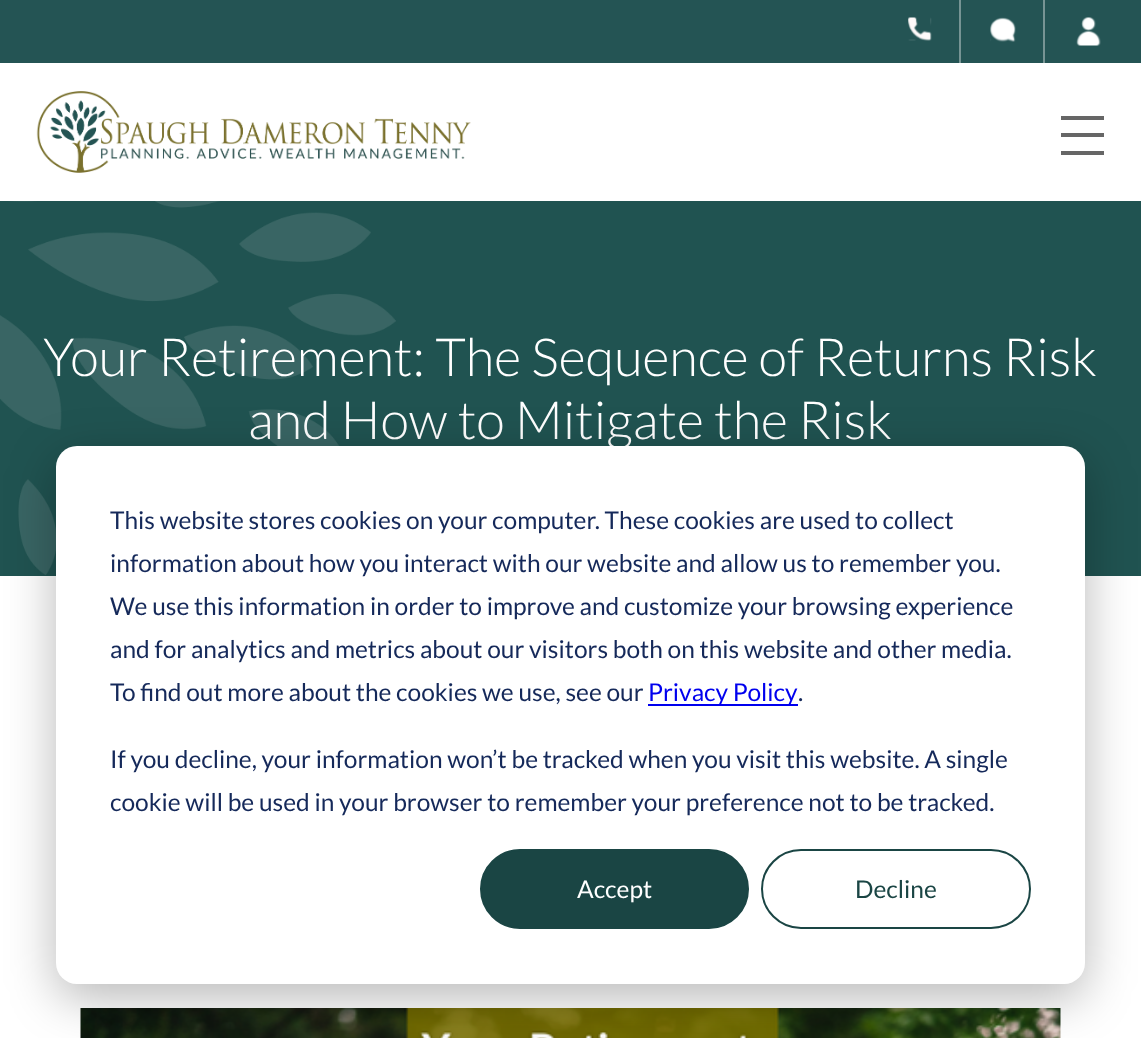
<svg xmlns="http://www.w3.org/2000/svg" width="1141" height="1038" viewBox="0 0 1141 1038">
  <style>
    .t1 { font: 300 52.5px Lato; fill: #fff; }
    .t2 { font: 24.5px Lato; fill: #15295a; }
    .t3 { font: 24.5px Lato; fill: #00e; }
    .t4 { font: 24.5px Lato; fill: #fff; }
    .t5 { font: 24.5px Lato; fill: #1a4544; }
  </style>
  <rect width="100%" height="100%" fill="#fff"/>
  <rect x="0" y="0" width="1141" height="63" fill="#245454"/>
  <image x="908" y="17" width="24" height="24" href="images/1.png"/>
  <rect x="959" y="0" width="2" height="70" fill="#f5f5f566"/>
  <image x="990" y="17" width="26" height="25" href="images/2.png"/>
  <rect x="1043" y="0" width="2" height="70" fill="#f5f5f566"/>
  <image x="1076" y="17" width="25" height="29" href="images/3.png"/>
  <rect x="959" y="63" width="86" height="7" fill="#fff"/>
  <image x="36" y="91" width="435" height="82" href="images/4.png"/>
  <rect x="1061" y="116" width="43" height="4" fill="#666"/>
  <rect x="1061" y="133" width="43" height="4" fill="#666"/>
  <rect x="1061" y="151" width="43" height="4" fill="#666"/>
  <rect x="0" y="201" width="1141" height="375" fill="#205351"/>
  <image x="0" y="201" width="396" height="374" href="images/5.png"/>
  <text x="43" y="376" class="t1">Your Retirement: The Sequence of Returns Risk</text>
  <text x="248" y="439" class="t1">and How to Mitigate the Risk</text>
  <image x="80" y="1008" width="981" height="30" href="images/6.png"/>
  <rect x="56" y="460" width="1029" height="538" rx="21" fill="#00000047" filter="blur(24.5px)"/>
  <rect x="56" y="446" width="1029" height="538" rx="21" fill="#fff"/>
  <text x="110" y="529" class="t2">This website stores cookies on your computer. These cookies are used to collect</text>
  <text x="110" y="572" class="t2">information about how you interact with our website and allow us to remember you.</text>
  <text x="110" y="615" class="t2">We use this information in order to improve and customize your browsing experience</text>
  <text x="110" y="658" class="t2">and for analytics and metrics about our visitors both on this website and other media.</text>
  <text x="110" y="701" class="t2">To find out more about the cookies we use, see our</text>
  <rect x="648" y="704" width="150" height="2" fill="#00e"/>
  <text x="648" y="701" class="t3">Privacy Policy</text>
  <text x="798" y="701" class="t2">.</text>
  <text x="110" y="768" class="t2">If you decline, your information won’t be tracked when you visit this website. A single</text>
  <text x="110" y="811" class="t2">cookie will be used in your browser to remember your preference not to be tracked.</text>
  <rect x="481" y="850" width="267" height="78" rx="39" fill="#1a4544" stroke="#1a4544" stroke-width="2"/>
  <text x="577" y="898" class="t4">Accept</text>
  <rect x="762" y="850" width="268" height="78" rx="39" fill="none" stroke="#1a4544" stroke-width="2"/>
  <text x="855" y="898" class="t5">Decline</text>
</svg>
